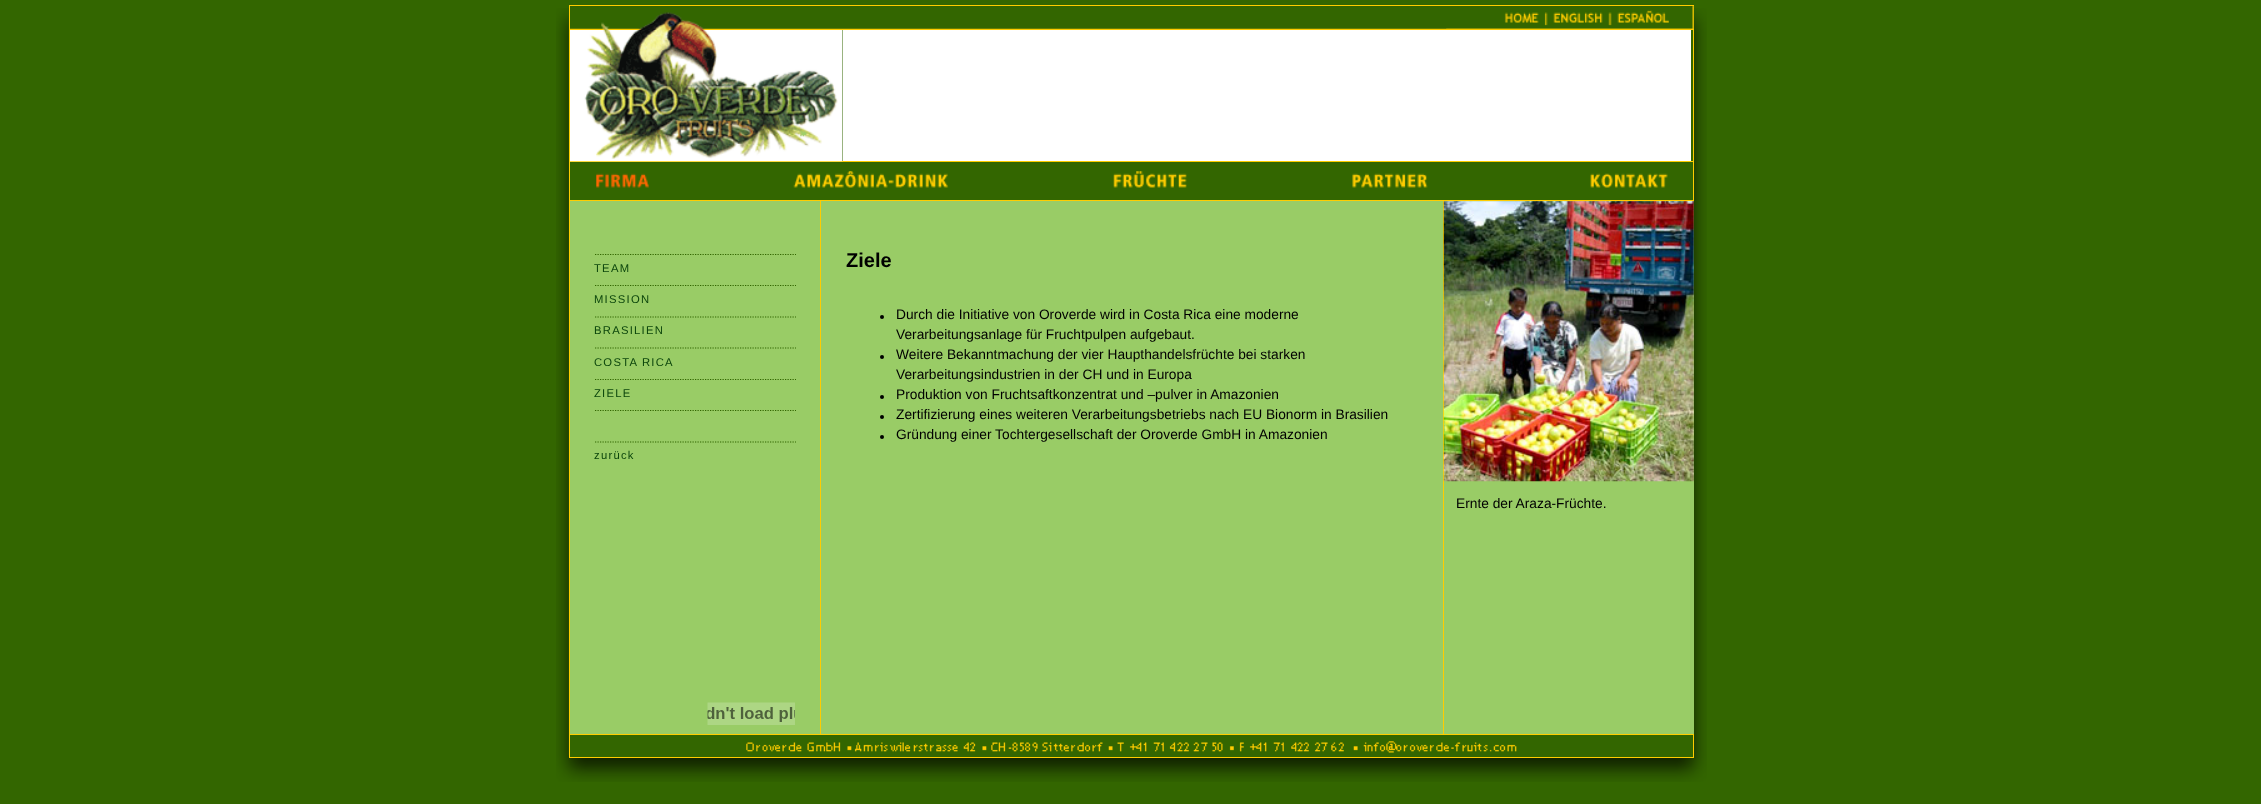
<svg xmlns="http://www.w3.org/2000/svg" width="2261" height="804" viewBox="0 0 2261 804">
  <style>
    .t1 { font: 11.25px Liberation Sans; letter-spacing: 1.25px; fill: #0c460c; }
    .t2 { font: bold 20px Liberation Sans; fill: #000; }
    .t3 { font: 13.75px Liberation Sans; fill: #000; }
  </style>
  <rect width="100%" height="100%" fill="#360"/>
  <image x="556" y="8" width="1151" height="774" href="images/1.png"/>
  <rect x="570" y="754" width="1123" height="3" fill="#360"/>
  <rect x="569.5" y="5.5" width="1124" height="752" fill="none" stroke="#fc0"/>
  <image x="570" y="6" width="1124" height="24" href="images/2.png"/>
  <image x="1446" y="6" width="248" height="23" href="images/3.png"/>
  <rect x="570" y="161" width="1123" height="1" fill="#fc0"/>
  <image x="570" y="30" width="273" height="132" href="images/4.png"/>
  <rect x="843" y="30" width="848" height="131" fill="#fff"/>
  <rect x="570" y="200" width="1123" height="1" fill="#fc0"/>
  <image x="596" y="173" width="53" height="15" href="images/5.png"/>
  <image x="793" y="171" width="156" height="17" href="images/6.png"/>
  <image x="1113" y="171" width="74" height="17" href="images/7.png"/>
  <image x="1352" y="173" width="76" height="15" href="images/8.png"/>
  <image x="1590" y="173" width="78" height="15" href="images/9.png"/>
  <rect x="570" y="201" width="250" height="533" fill="#9c6"/>
  <path d="M595 254.5H796" fill="none" stroke="#360" stroke-width="1.2" stroke-dasharray="1.25 1.25"/>
  <text x="594" y="272" class="t1">TEAM</text>
  <path d="M595 285.5H796" fill="none" stroke="#360" stroke-width="1.2" stroke-dasharray="1.25 1.25"/>
  <text x="594" y="303" class="t1">MISSION</text>
  <path d="M595 317H796" fill="none" stroke="#360" stroke-width="1.2" stroke-dasharray="1.25 1.25"/>
  <text x="594" y="334" class="t1">BRASILIEN</text>
  <path d="M595 348H796" fill="none" stroke="#360" stroke-width="1.2" stroke-dasharray="1.25 1.25"/>
  <text x="594" y="366" class="t1">COSTA RICA</text>
  <path d="M595 379.5H796" fill="none" stroke="#360" stroke-width="1.2" stroke-dasharray="1.25 1.25"/>
  <text x="594" y="397" class="t1">ZIELE</text>
  <path d="M595 410.5H796" fill="none" stroke="#360" stroke-width="1.2" stroke-dasharray="1.25 1.25"/>
  <path d="M595 442H796" fill="none" stroke="#360" stroke-width="1.2" stroke-dasharray="1.25 1.25"/>
  <text x="594" y="459" class="t1">zurück</text>
  <image x="707" y="702" width="88" height="23" href="images/10.png"/>
  <rect x="821" y="201" width="622" height="533" fill="#9c6"/>
  <rect x="1443" y="201" width="1" height="533" fill="#fc0"/>
  <rect x="820" y="201" width="1" height="533" fill="#fc0"/>
  <text x="846" y="267" class="t2">Ziele</text>
  <circle cx="882" cy="317" r="2" fill="#000"/>
  <text x="896" y="319" class="t3">Durch die Initiative von Oroverde wird in Costa Rica eine moderne</text>
  <text x="896" y="339" class="t3">Verarbeitungsanlage für Fruchtpulpen aufgebaut.</text>
  <circle cx="882" cy="357" r="2" fill="#000"/>
  <text x="896" y="359" class="t3">Weitere Bekanntmachung der vier Haupthandelsfrüchte bei starken</text>
  <text x="896" y="379" class="t3">Verarbeitungsindustrien in der CH und in Europa</text>
  <circle cx="882" cy="397" r="2" fill="#000"/>
  <text x="896" y="399" class="t3">Produktion von Fruchtsaftkonzentrat und –pulver in Amazonien</text>
  <circle cx="882" cy="417" r="2" fill="#000"/>
  <text x="896" y="419" class="t3">Zertifizierung eines weiteren Verarbeitungsbetriebs nach EU Bionorm in Brasilien</text>
  <circle cx="882" cy="437" r="2" fill="#000"/>
  <text x="896" y="439" class="t3">Gründung einer Tochtergesellschaft der Oroverde GmbH in Amazonien</text>
  <rect x="1444" y="201" width="250" height="533" fill="#9c6"/>
  <image x="1443" y="201" width="251" height="281" href="images/11.png"/>
  <text x="1456" y="508" class="t3">Ernte der Araza-Früchte.</text>
  <rect x="570" y="734" width="1123" height="1" fill="#fc0"/>
  <image x="746" y="741" width="771" height="12" href="images/12.png"/>
</svg>
